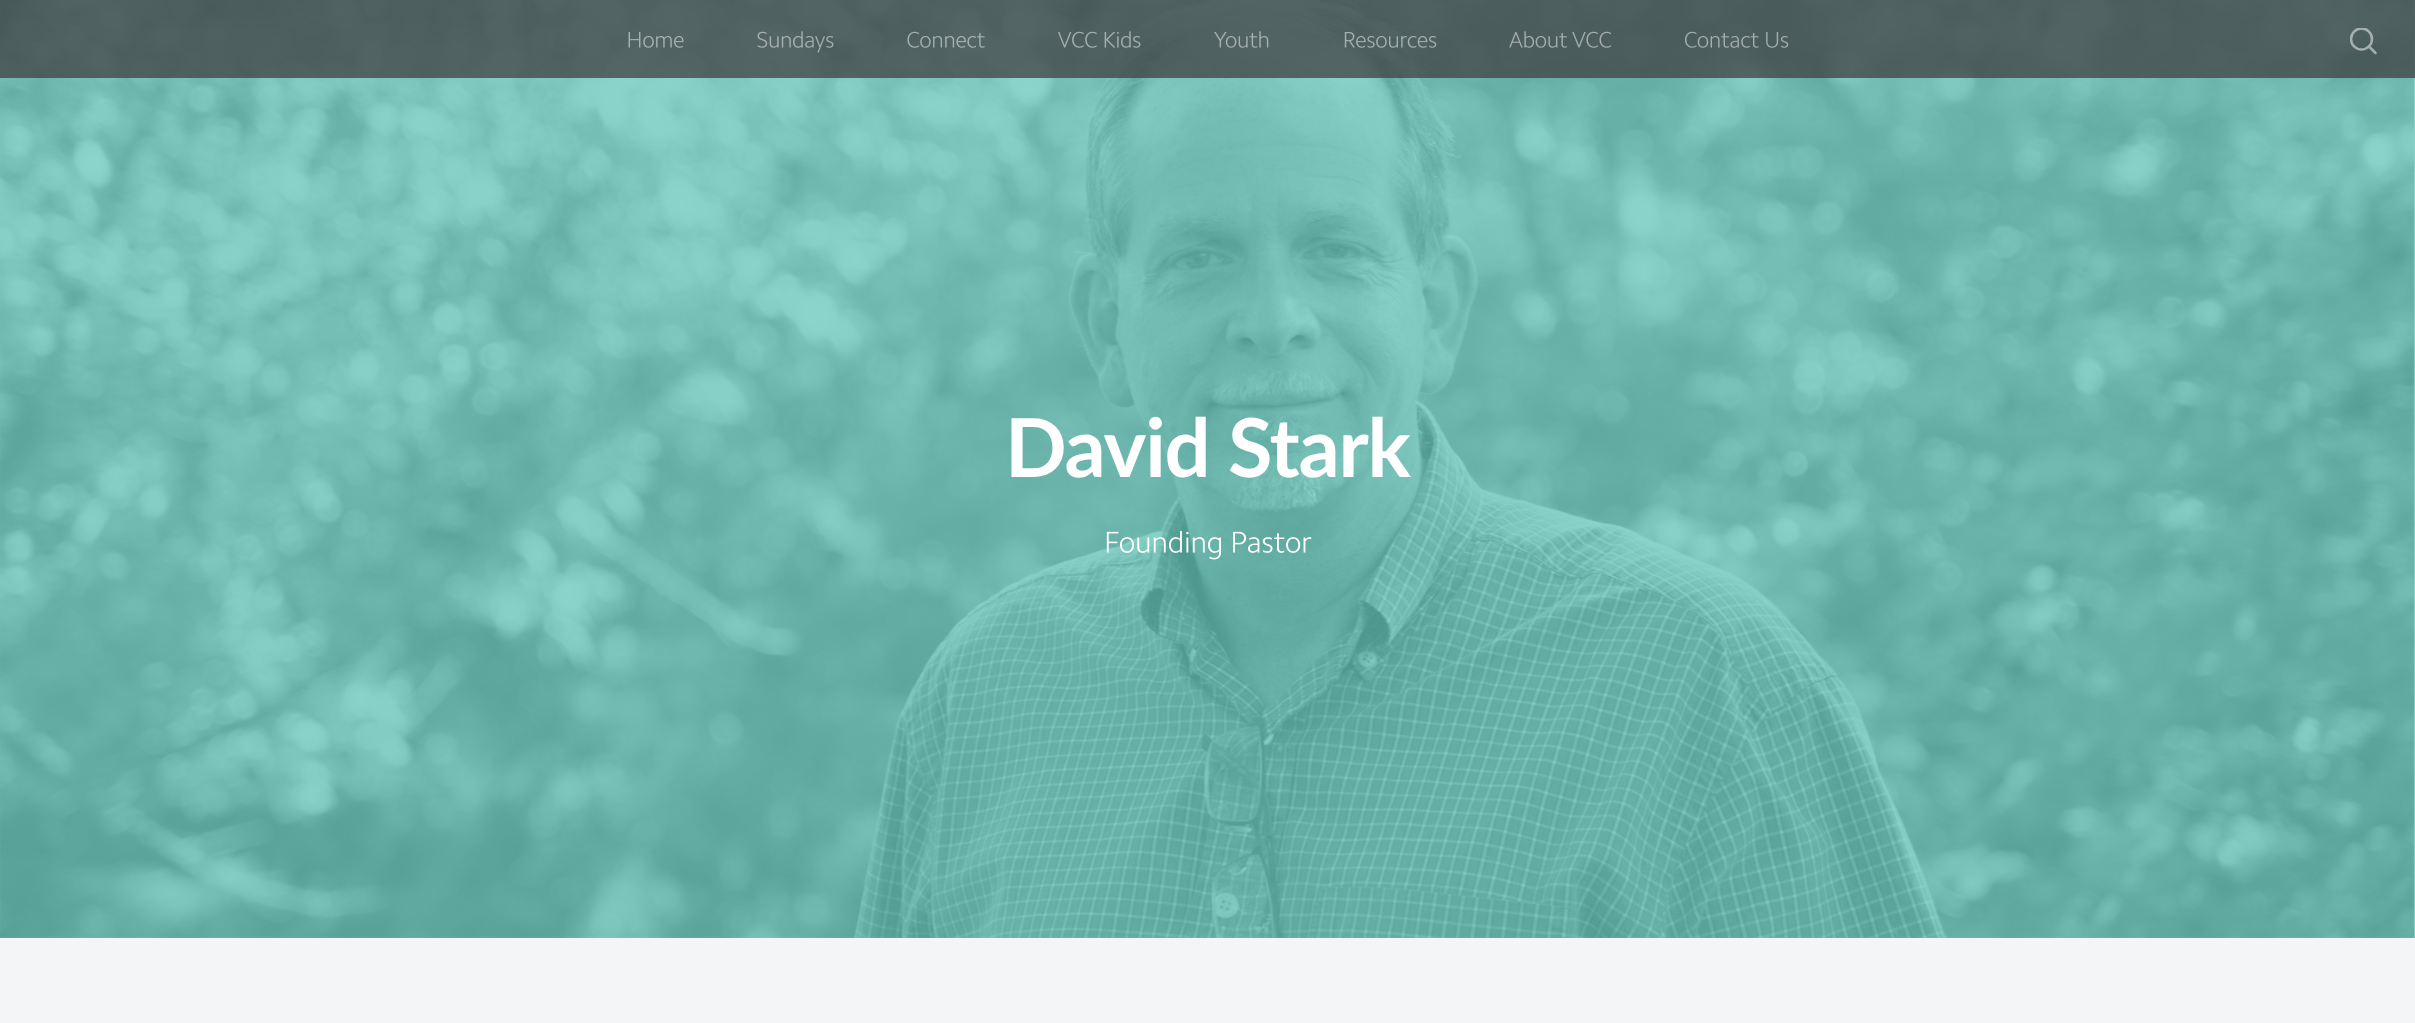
<svg xmlns="http://www.w3.org/2000/svg" width="2415" height="1023" viewBox="0 0 2415 1023">
  <style>
    .t1 { font: bold 81.25px Lato; letter-spacing: -1.25px; fill: #fff; }
  </style>
  <defs>
    <clipPath id="clip1"><rect x="2350" y="28" width="28" height="27"/></clipPath>
  </defs>
  <rect width="100%" height="100%" fill="#fff"/>
  <image x="0" y="0" width="2415" height="938" href="images/1.png"/>
  <rect x="0" y="0" width="2415" height="78" fill="#404041bf"/>
  <image x="628" y="32" width="56" height="16" href="images/2.png"/>
  <image x="757" y="31" width="77" height="22" href="images/3.png"/>
  <image x="907" y="31" width="78" height="17" href="images/4.png"/>
  <image x="1058" y="31" width="83" height="17" href="images/5.png"/>
  <image x="1214" y="31" width="55" height="17" href="images/6.png"/>
  <image x="1344" y="32" width="93" height="16" href="images/7.png"/>
  <image x="1509" y="31" width="102" height="17" href="images/8.png"/>
  <image x="1685" y="31" width="104" height="17" href="images/9.png"/>
  <g clip-path="url(#clip1)">
    <circle cx="2361.5" cy="39" r="10.5" fill="none" stroke="#ffffff80" stroke-width="2.5"/>
  </g>
  <path d="M2369 46.5L2375.5 53" fill="none" stroke="#a4adad" stroke-width="2.5" stroke-linecap="round"/>
  <text x="1005" y="477" class="t1">David Stark</text>
  <image x="1106" y="530" width="206" height="30" href="images/10.png"/>
  <rect x="0" y="938" width="2415" height="85" fill="#f3f5f7"/>
</svg>
